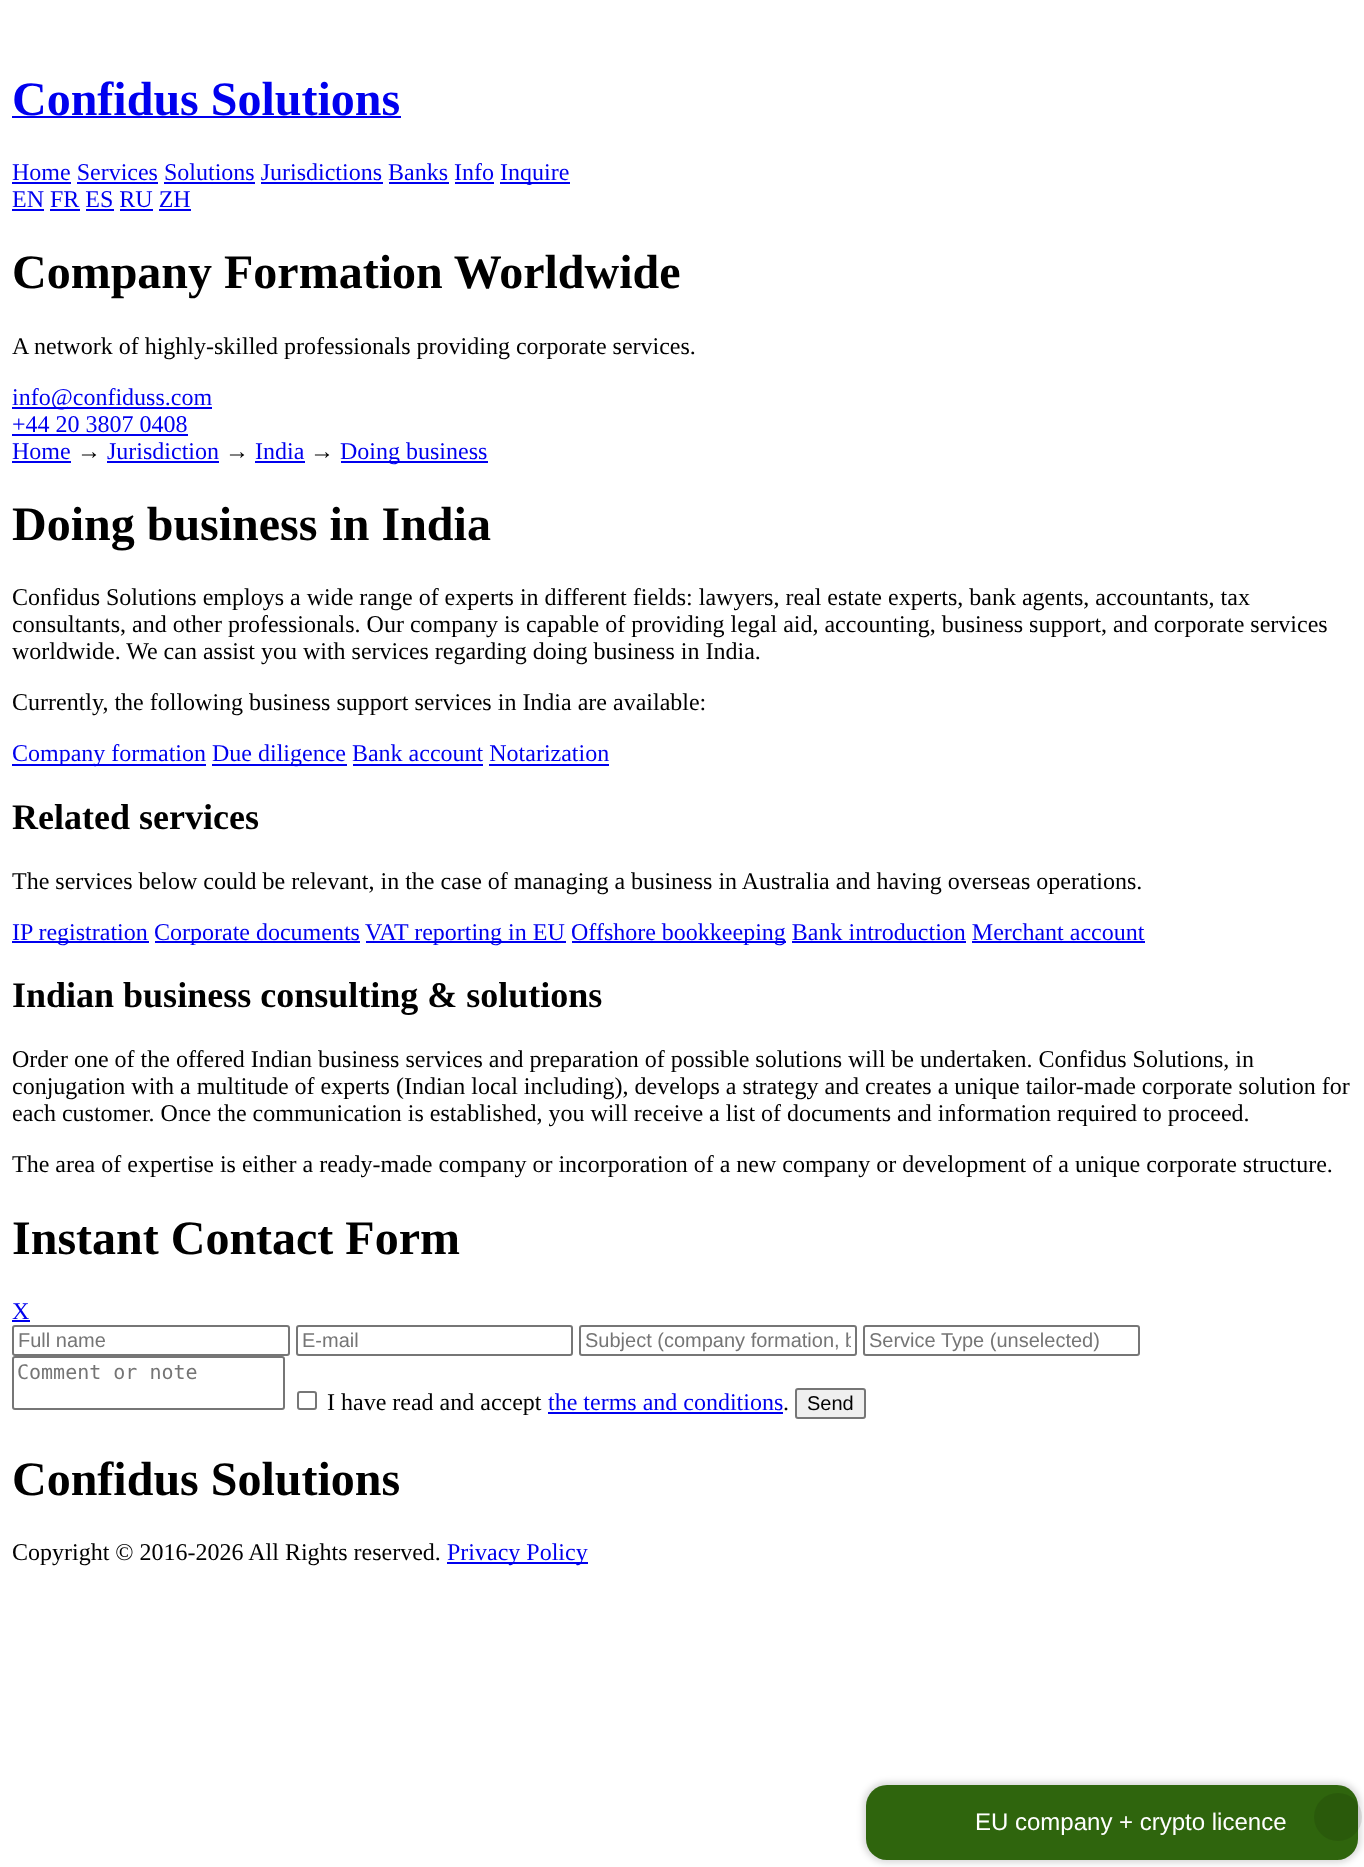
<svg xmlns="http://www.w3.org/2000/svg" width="1364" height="1867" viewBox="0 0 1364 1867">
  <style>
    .t1 { font: bold 48px Liberation Serif; fill: #00e; }
    .t2 { font: 24px Liberation Serif; fill: #00e; }
    .t3 { font: bold 48px Liberation Serif; fill: #000; }
    .t4 { font: 24px Liberation Serif; fill: #000; }
    .t5 { font: bold 36px Liberation Serif; fill: #000; }
    .t6 { font: 20px Liberation Sans; fill: #757575; }
    .t7 { font: 20px DejaVu Sans Mono; fill: #757575; }
    .t8 { font: 20px Liberation Sans; fill: #000; }
    .t9 { font: 24px Liberation Sans; fill: #fff; }
  </style>
  <defs>
    <clipPath id="clip1"><rect x="585" y="1329" width="266" height="23"/></clipPath>
  </defs>
  <rect width="100%" height="100%" fill="#fff"/>
  <text x="12" y="115" class="t1">Confidus Solutions</text>
  <rect x="12" y="116" width="389" height="2" fill="#00e"/>
  <text x="12" y="180" class="t2">Home Services Solutions Jurisdictions Banks Info</text>
  <rect x="12" y="182" width="59" height="2" fill="#00e"/>
  <rect x="500" y="182" width="70" height="2" fill="#00e"/>
  <text x="500" y="180" class="t2">Inquire</text>
  <rect x="77" y="182" width="81" height="2" fill="#00e"/>
  <rect x="164" y="182" width="91" height="2" fill="#00e"/>
  <rect x="261" y="182" width="122" height="2" fill="#00e"/>
  <rect x="389" y="182" width="60" height="2" fill="#00e"/>
  <rect x="455" y="182" width="39" height="2" fill="#00e"/>
  <text x="12" y="207" class="t2">EN FR ES RU ZH</text>
  <rect x="12" y="209" width="32" height="2" fill="#00e"/>
  <rect x="50" y="209" width="30" height="2" fill="#00e"/>
  <rect x="86" y="209" width="28" height="2" fill="#00e"/>
  <rect x="120" y="209" width="33" height="2" fill="#00e"/>
  <rect x="159" y="209" width="32" height="2" fill="#00e"/>
  <text x="12" y="288" class="t3">Company Formation Worldwide</text>
  <text x="12" y="354" class="t4">A network of highly-skilled professionals providing corporate services.</text>
  <rect x="12" y="407" width="200" height="2" fill="#00e"/>
  <text x="12" y="405" class="t2">info@confiduss.com</text>
  <text x="12" y="432" class="t2">+44 20 3807 0408</text>
  <rect x="12" y="434" width="176" height="2" fill="#00e"/>
  <text x="12" y="459" class="t2">Home</text>
  <rect x="12" y="461" width="59" height="2" fill="#00e"/>
  <text x="77" y="459" class="t4">→</text>
  <text x="107" y="459" class="t2">Jurisdiction</text>
  <rect x="107" y="461" width="112" height="2" fill="#00e"/>
  <text x="225" y="459" class="t4">→</text>
  <text x="255" y="459" class="t2">India</text>
  <rect x="255" y="461" width="50" height="2" fill="#00e"/>
  <text x="310" y="459" class="t4">→</text>
  <rect x="341" y="461" width="147" height="2" fill="#00e"/>
  <text x="340" y="459" class="t2">Doing business</text>
  <text x="12" y="540" class="t3">Doing business in India</text>
  <text x="12" y="605" class="t4">Confidus Solutions employs a wide range of experts in different fields: lawyers, real estate experts, bank agents, accountants, tax</text>
  <text x="12" y="632" class="t4">consultants, and other professionals. Our company is capable of providing legal aid, accounting, business support, and corporate services</text>
  <text x="12" y="659" class="t4">worldwide. We can assist you with services regarding doing business in India.</text>
  <text x="12" y="710" class="t4">Currently, the following business support services in India are available:</text>
  <rect x="12" y="764" width="194" height="2" fill="#00e"/>
  <text x="12" y="761" class="t2">Company formation</text>
  <rect x="212" y="764" width="135" height="2" fill="#00e"/>
  <text x="212" y="761" class="t2">Due diligence Bank account Notarization</text>
  <rect x="353" y="764" width="130" height="2" fill="#00e"/>
  <rect x="489" y="764" width="120" height="2" fill="#00e"/>
  <text x="12" y="829" class="t5">Related services</text>
  <text x="12" y="889" class="t4">The services below could be relevant, in the case of managing a business in Australia and having overseas operations.</text>
  <rect x="12" y="941" width="137" height="2" fill="#00e"/>
  <text x="12" y="940" class="t2">IP registration</text>
  <rect x="155" y="941" width="205" height="2" fill="#00e"/>
  <text x="154" y="940" class="t2">Corporate documents</text>
  <rect x="366" y="941" width="200" height="2" fill="#00e"/>
  <text x="365" y="940" class="t2">VAT reporting in EU</text>
  <rect x="572" y="941" width="214" height="2" fill="#00e"/>
  <text x="571" y="940" class="t2">Offshore bookkeeping Bank introduction Merchant account</text>
  <rect x="792" y="941" width="174" height="2" fill="#00e"/>
  <rect x="972" y="941" width="173" height="2" fill="#00e"/>
  <text x="12" y="1007" class="t5">Indian business consulting &amp; solutions</text>
  <text x="12" y="1067" class="t4">Order one of the offered Indian business services and preparation of possible solutions will be undertaken. Confidus Solutions, in</text>
  <text x="12" y="1094" class="t4">conjugation with a multitude of experts (Indian local including), develops a strategy and creates a unique tailor-made corporate solution for</text>
  <text x="12" y="1121" class="t4">each customer. Once the communication is established, you will receive a list of documents and information required to proceed.</text>
  <text x="12" y="1172" class="t4">The area of expertise is either a ready-made company or incorporation of a new company or development of a unique corporate structure.</text>
  <text x="12" y="1254" class="t3">Instant Contact Form</text>
  <text x="12" y="1319" class="t2">X</text>
  <rect x="12" y="1320" width="18" height="2" fill="#00e"/>
  <rect x="13" y="1326" width="276" height="29" rx="2" fill="none" stroke="#767676" stroke-width="2"/>
  <text x="18" y="1347" class="t6">Full name</text>
  <rect x="297" y="1326" width="275" height="29" rx="2" fill="none" stroke="#767676" stroke-width="2"/>
  <text x="302" y="1347" class="t6">E-mail</text>
  <rect x="580" y="1326" width="276" height="29" rx="2" fill="none" stroke="#767676" stroke-width="2"/>
  <g clip-path="url(#clip1)">
    <text x="585" y="1347" class="t6">Subject (company formation, b</text>
  </g>
  <rect x="864" y="1326" width="275" height="29" rx="2" fill="none" stroke="#767676" stroke-width="2"/>
  <text x="869" y="1347" class="t6">Service Type (unselected)</text>
  <rect x="13" y="1357" width="271" height="52" rx="2" fill="none" stroke="#767676" stroke-width="2"/>
  <text x="17" y="1379" class="t7">Comment or note</text>
  <rect x="298" y="1392" width="18" height="17" rx="2" fill="none" stroke="#767676" stroke-width="2"/>
  <text x="327" y="1410" class="t4">I have read and accept</text>
  <text x="548" y="1410" class="t2">the terms and conditions</text>
  <rect x="548" y="1412" width="235" height="2" fill="#00e"/>
  <text x="783" y="1410" class="t4">.</text>
  <rect x="796" y="1389" width="69" height="29" rx="2" fill="#efefef" stroke="#767676" stroke-width="2"/>
  <text x="807" y="1410" class="t8">Send</text>
  <text x="12" y="1495" class="t3">Confidus Solutions</text>
  <text x="12" y="1560" class="t4">Copyright © 2016-2026 All Rights reserved.</text>
  <rect x="447" y="1562" width="141" height="2" fill="#00e"/>
  <text x="447" y="1560" class="t2">Privacy Policy</text>
  <rect x="863" y="1782" width="498" height="81" rx="24" fill="#00000026" filter="blur(3px)"/>
  <rect x="866" y="1785" width="492" height="75" rx="21" fill="#2f650d"/>
  <text x="975" y="1830" class="t9">EU company + crypto licence</text>
  <circle cx="1338" cy="1817" r="24" fill="#0000001a"/>
</svg>
